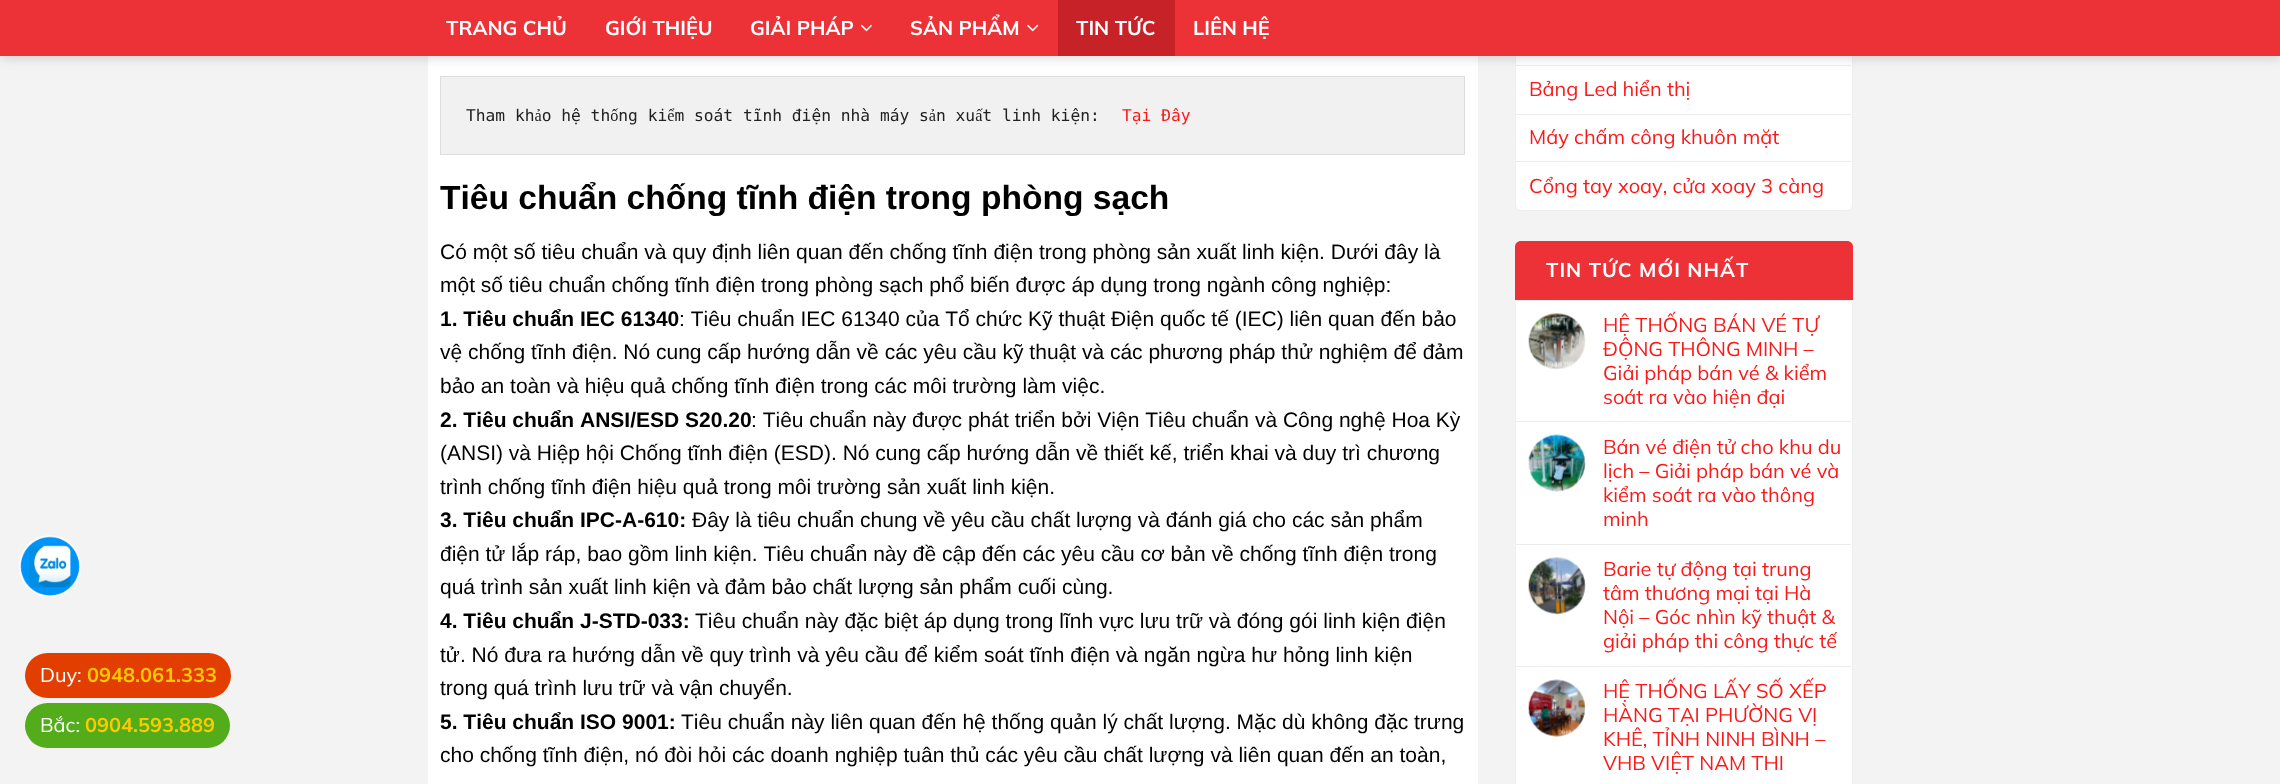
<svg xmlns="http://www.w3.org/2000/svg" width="2280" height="784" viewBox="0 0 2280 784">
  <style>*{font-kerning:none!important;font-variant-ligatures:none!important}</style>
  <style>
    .t1 { font: bold 20px Mulish; fill: #fff; }
    .t2 { font: 16.25px DejaVu Sans Mono; fill: #212121; }
    .t3 { font: 16.25px DejaVu Sans Mono; fill: #fa1919; }
    .t4 { font: bold 33.6px Liberation Sans; fill: #000; }
    .t5 { font: 21px Liberation Sans; fill: #000; }
    .t6 { font: bold 21px Liberation Sans; fill: #000; }
    .t7 { font: 20px Mulish; fill: #fa1919; }
    .t8 { font: bold 20px Mulish; letter-spacing: 1px; fill: #fff; }
    .t9 { font: 20px Mulish; fill: #fff; }
    .t10 { font: bold 20px Mulish; fill: #fec901; }
  </style>
  <rect width="100%" height="100%" fill="#f3f3f3"/>
  <image x="19" y="535" width="62" height="62" href="images/1.png"/>
  <rect x="428" y="56" width="1050" height="728" fill="#fff"/>
  <rect x="440.5" y="76.5" width="1024" height="78" fill="#f1f1f1" stroke="#ddd"/>
  <path d="M1515.5-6.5H1852.5V205C1852.5 208 1850 210.5 1847 210.5H1521C1518 210.5 1515.5 208 1515.5 205Z" fill="#fff" stroke="#eee"/>
  <rect x="1516" y="65" width="335" height="1" fill="#ececec"/>
  <rect x="1" y="1" width="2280" height="57" fill="#00000026" filter="blur(6px)"/>
  <rect x="0" y="0" width="2280" height="56" fill="#ed3237"/>
  <text x="446" y="35" class="t1">TRANG CHỦ</text>
  <text x="605" y="35" class="t1">GIỚI THIỆU</text>
  <text x="750" y="35" class="t1">GIẢI PHÁP</text>
  <image x="860" y="24" width="12" height="8" href="images/2.png"/>
  <text x="910" y="35" class="t1">SẢN PHẨM</text>
  <image x="1027" y="24" width="12" height="8" href="images/3.png"/>
  <rect x="1058" y="0" width="117" height="56" fill="#c72227"/>
  <text x="1076" y="35" class="t1">TIN TỨC</text>
  <text x="1193" y="35" class="t1">LIÊN HỆ</text>
  <text x="466" y="121" class="t2">Tham khảo hệ thống kiểm soát tĩnh điện nhà máy sản xuất linh kiện:</text>
  <text x="1122" y="121" class="t3">Tại Đây</text>
  <text x="440" y="209" class="t4">Tiêu chuẩn chống tĩnh điện trong phòng sạch</text>
  <text x="440" y="259" class="t5">Có một số tiêu chuẩn và quy định liên quan đến chống tĩnh điện trong phòng sản xuất linh kiện. Dưới đây là</text>
  <text x="440" y="292" class="t5">một số tiêu chuẩn chống tĩnh điện trong phòng sạch phổ biến được áp dụng trong ngành công nghiệp:</text>
  <text x="440" y="326" class="t6">1. Tiêu chuẩn IEC 61340</text>
  <text x="679" y="326" class="t5">: Tiêu chuẩn IEC 61340 của Tổ chức Kỹ thuật Điện quốc tế (IEC) liên quan đến bảo</text>
  <text x="440" y="359" class="t5">vệ chống tĩnh điện. Nó cung cấp hướng dẫn về các yêu cầu kỹ thuật và các phương pháp thử nghiệm để đảm</text>
  <text x="440" y="393" class="t5">bảo an toàn và hiệu quả chống tĩnh điện trong các môi trường làm việc.</text>
  <text x="440" y="427" class="t6">2. Tiêu chuẩn ANSI/ESD S20.20</text>
  <text x="751" y="427" class="t5">: Tiêu chuẩn này được phát triển bởi Viện Tiêu chuẩn và Công nghệ Hoa Kỳ</text>
  <text x="440" y="460" class="t5">(ANSI) và Hiệp hội Chống tĩnh điện (ESD). Nó cung cấp hướng dẫn về thiết kế, triển khai và duy trì chương</text>
  <text x="440" y="494" class="t5">trình chống tĩnh điện hiệu quả trong môi trường sản xuất linh kiện.</text>
  <text x="440" y="527" class="t6">3. Tiêu chuẩn IPC-A-610:</text>
  <text x="692" y="527" class="t5">Đây là tiêu chuẩn chung về yêu cầu chất lượng và đánh giá cho các sản phẩm</text>
  <text x="440" y="561" class="t5">điện tử lắp ráp, bao gồm linh kiện. Tiêu chuẩn này đề cập đến các yêu cầu cơ bản về chống tĩnh điện trong</text>
  <text x="440" y="594" class="t5">quá trình sản xuất linh kiện và đảm bảo chất lượng sản phẩm cuối cùng.</text>
  <text x="440" y="628" class="t6">4. Tiêu chuẩn J-STD-033:</text>
  <text x="695" y="628" class="t5">Tiêu chuẩn này đặc biệt áp dụng trong lĩnh vực lưu trữ và đóng gói linh kiện điện</text>
  <text x="440" y="662" class="t5">tử. Nó đưa ra hướng dẫn về quy trình và yêu cầu để kiểm soát tĩnh điện và ngăn ngừa hư hỏng linh kiện</text>
  <text x="440" y="695" class="t5">trong quá trình lưu trữ và vận chuyển.</text>
  <text x="440" y="729" class="t6">5. Tiêu chuẩn ISO 9001:</text>
  <text x="681" y="729" class="t5">Tiêu chuẩn này liên quan đến hệ thống quản lý chất lượng. Mặc dù không đặc trưng</text>
  <text x="440" y="762" class="t5">cho chống tĩnh điện, nó đòi hỏi các doanh nghiệp tuân thủ các yêu cầu chất lượng và liên quan đến an toàn,</text>
  <text x="1529" y="96" class="t7">Bảng Led hiển thị</text>
  <rect x="1516" y="114" width="335" height="1" fill="#ececec"/>
  <text x="1529" y="144" class="t7">Máy chấm công khuôn mặt</text>
  <rect x="1516" y="161" width="335" height="1" fill="#ececec"/>
  <text x="1529" y="193" class="t7">Cổng tay xoay, cửa xoay 3 càng</text>
  <path d="M1521 241H1847C1850.5 241 1853 243.5 1853 247V300H1515V247C1515 243.5 1517.5 241 1521 241Z" fill="#ed3237"/>
  <text x="1546" y="277" class="t8">TIN TỨC MỚI NHẤT</text>
  <rect x="1515.5" y="300.5" width="337" height="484" fill="#fff" stroke="#eee"/>
  <image x="1528" y="313" width="58" height="57" href="images/4.png"/>
  <text x="1603" y="332" class="t7">HỆ THỐNG BÁN VÉ TỰ</text>
  <text x="1603" y="356" class="t7">ĐỘNG THÔNG MINH –</text>
  <text x="1603" y="380" class="t7">Giải pháp bán vé &amp; kiểm</text>
  <text x="1603" y="404" class="t7">soát ra vào hiện đại</text>
  <rect x="1516" y="421" width="335" height="1" fill="#ececec"/>
  <image x="1528" y="434" width="58" height="58" href="images/5.png"/>
  <text x="1603" y="454" class="t7">Bán vé điện tử cho khu du</text>
  <text x="1603" y="478" class="t7">lịch – Giải pháp bán vé và</text>
  <text x="1603" y="502" class="t7">kiểm soát ra vào thông</text>
  <text x="1603" y="526" class="t7">minh</text>
  <rect x="1516" y="544" width="335" height="1" fill="#ececec"/>
  <image x="1528" y="557" width="58" height="58" href="images/6.png"/>
  <text x="1603" y="576" class="t7">Barie tự động tại trung</text>
  <text x="1603" y="600" class="t7">tâm thương mại tại Hà</text>
  <text x="1603" y="624" class="t7">Nội – Góc nhìn kỹ thuật &amp;</text>
  <text x="1603" y="648" class="t7">giải pháp thi công thực tế</text>
  <rect x="1516" y="666" width="335" height="1" fill="#ececec"/>
  <image x="1528" y="679" width="58" height="58" href="images/7.png"/>
  <text x="1603" y="698" class="t7">HỆ THỐNG LẤY SỐ XẾP</text>
  <text x="1603" y="722" class="t7">HÀNG TẠI PHƯỜNG VỊ</text>
  <text x="1603" y="746" class="t7">KHÊ, TỈNH NINH BÌNH –</text>
  <text x="1603" y="770" class="t7">VHB VIỆT NAM THI</text>
  <rect x="25" y="653" width="206" height="45" rx="22.5" fill="#e23e00"/>
  <text x="40" y="682" class="t9">Duy:</text>
  <text x="87" y="682" class="t10">0948.061.333</text>
  <rect x="25" y="703" width="205" height="45" rx="22.5" fill="#53ac19"/>
  <text x="40" y="732" class="t9">Bắc:</text>
  <text x="85" y="732" class="t10">0904.593.889</text>
</svg>
